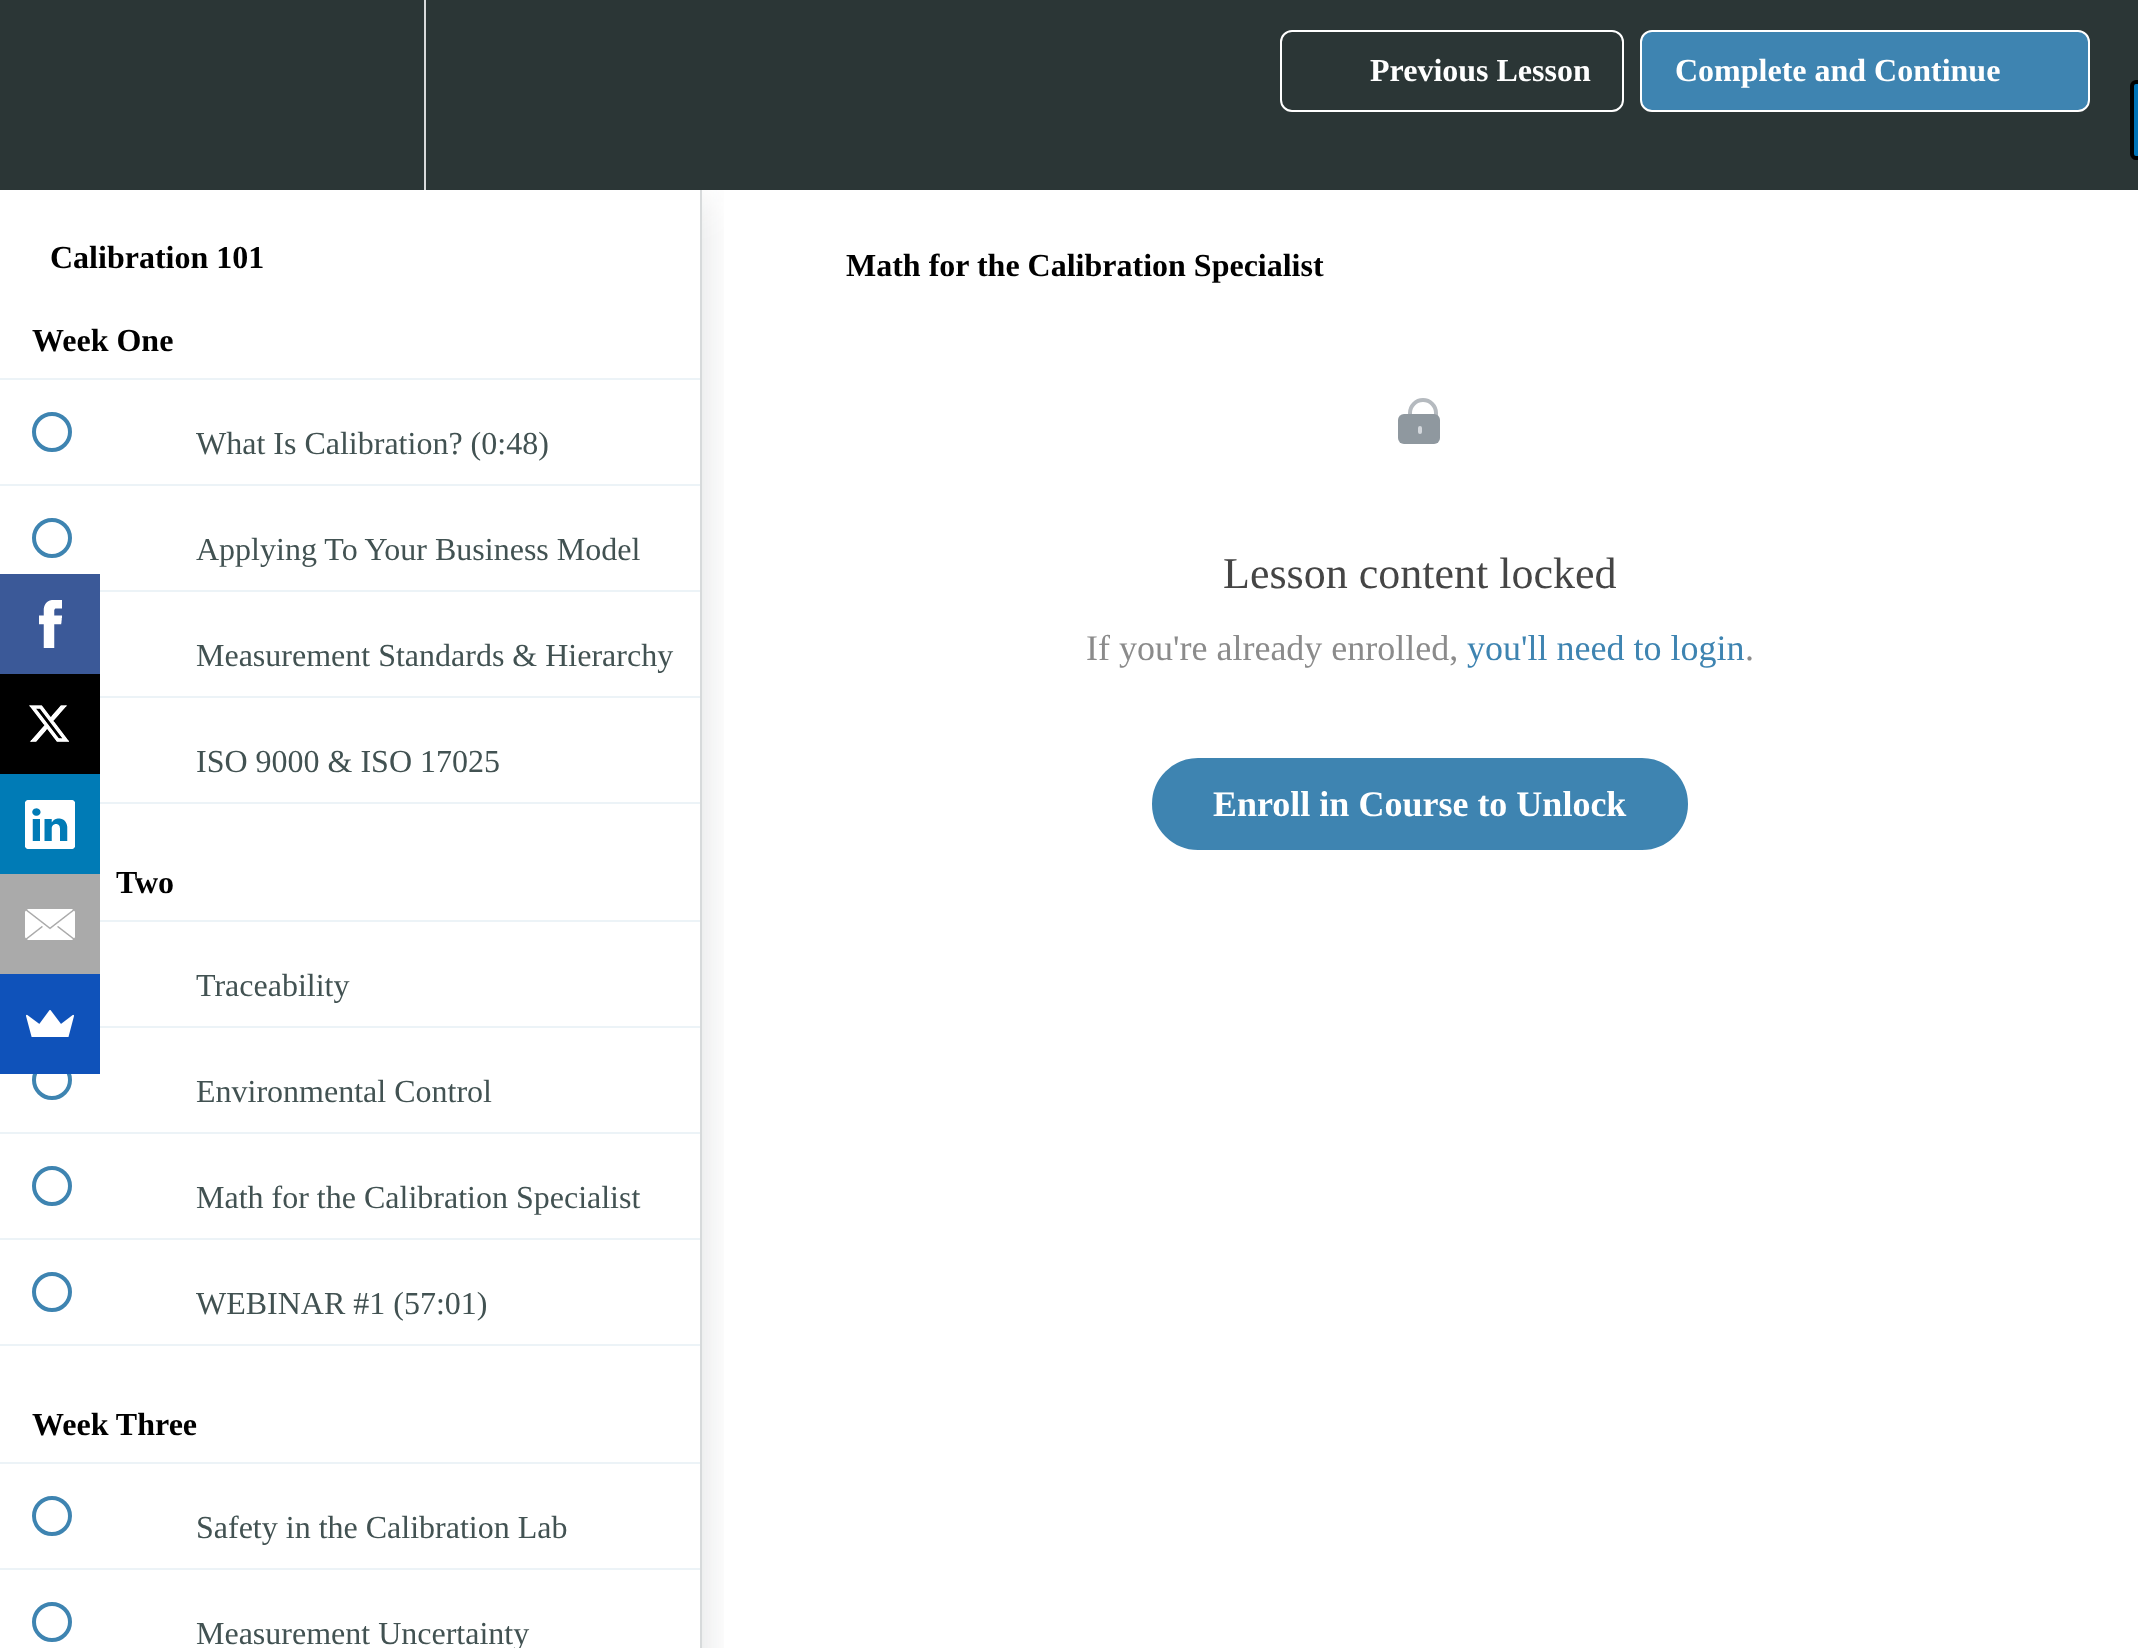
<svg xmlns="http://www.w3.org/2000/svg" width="2138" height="1648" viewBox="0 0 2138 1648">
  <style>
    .t1 { font: bold 32px Liberation Serif; fill: #fff; }
    .t2 { font: bold 32px Liberation Serif; fill: #000; }
    .t3 { font: 32px Liberation Serif; fill: #425252; }
    .t4 { font: 44px Liberation Serif; fill: #454545; }
    .t5 { font: 36px Liberation Serif; fill: #8b8b8b; }
    .t6 { font: 36px Liberation Serif; fill: #3e84b1; }
    .t7 { font: bold 36px Liberation Serif; fill: #fff; }
  </style>
  <defs>
    <clipPath id="clip1"><rect x="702" y="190" width="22" height="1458"/></clipPath>
  </defs>
  <rect width="100%" height="100%" fill="#fff"/>
  <g clip-path="url(#clip1)">
    <rect x="0" y="202" width="702" height="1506" fill="#20272d26" filter="blur(20px)"/>
  </g>
  <rect x="0" y="0" width="2138" height="190" fill="#2b3636"/>
  <rect x="424" y="0" width="2" height="190" fill="#d7dadb"/>
  <rect x="1281" y="31" width="342" height="80" rx="11" fill="none" stroke="#fff" stroke-width="2"/>
  <text x="1370" y="81" class="t1">Previous Lesson</text>
  <rect x="1641" y="31" width="448" height="80" rx="11" fill="#3e84b1" stroke="#fff" stroke-width="2"/>
  <text x="1675" y="81" class="t1">Complete and Continue</text>
  <path d="M2136 82H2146V158H2136C2134 158 2132 156 2132 154V86C2132 84 2134 82 2136 82Z" fill="#0073b7" stroke="#000" stroke-width="4"/>
  <rect x="700" y="190" width="2" height="1458" fill="#d7dadb"/>
  <text x="50" y="268" class="t2">Calibration 101</text>
  <rect x="0" y="378" width="700" height="2" fill="#ecf3f7"/>
  <text x="32" y="351" class="t2">Week One</text>
  <rect x="0" y="484" width="700" height="2" fill="#ecf3f7"/>
  <circle cx="52" cy="432" r="18" fill="none" stroke="#3e84b1" stroke-width="4"/>
  <text x="196" y="454" class="t3">What Is Calibration? (0:48)</text>
  <rect x="100" y="590" width="600" height="2" fill="#ecf3f7"/>
  <circle cx="52" cy="538" r="18" fill="none" stroke="#3e84b1" stroke-width="4"/>
  <text x="196" y="560" class="t3">Applying To Your Business Model</text>
  <rect x="100" y="696" width="600" height="2" fill="#ecf3f7"/>
  <text x="196" y="666" class="t3">Measurement Standards &amp; Hierarchy</text>
  <rect x="100" y="802" width="600" height="2" fill="#ecf3f7"/>
  <text x="196" y="772" class="t3">ISO 9000 &amp; ISO 17025</text>
  <rect x="100" y="920" width="600" height="2" fill="#ecf3f7"/>
  <text x="116" y="893" class="t2">Two</text>
  <rect x="100" y="1026" width="600" height="2" fill="#ecf3f7"/>
  <text x="196" y="996" class="t3">Traceability</text>
  <rect x="0" y="1132" width="700" height="2" fill="#ecf3f7"/>
  <circle cx="52" cy="1080" r="18" fill="none" stroke="#3e84b1" stroke-width="4"/>
  <text x="196" y="1102" class="t3">Environmental Control</text>
  <rect x="0" y="1238" width="700" height="2" fill="#ecf3f7"/>
  <circle cx="52" cy="1186" r="18" fill="none" stroke="#3e84b1" stroke-width="4"/>
  <text x="196" y="1208" class="t3">Math for the Calibration Specialist</text>
  <rect x="0" y="1344" width="700" height="2" fill="#ecf3f7"/>
  <circle cx="52" cy="1292" r="18" fill="none" stroke="#3e84b1" stroke-width="4"/>
  <text x="196" y="1314" class="t3">WEBINAR #1 (57:01)</text>
  <rect x="0" y="1462" width="700" height="2" fill="#ecf3f7"/>
  <text x="32" y="1435" class="t2">Week Three</text>
  <rect x="0" y="1568" width="700" height="2" fill="#ecf3f7"/>
  <circle cx="52" cy="1516" r="18" fill="none" stroke="#3e84b1" stroke-width="4"/>
  <text x="196" y="1538" class="t3">Safety in the Calibration Lab</text>
  <circle cx="52" cy="1622" r="18" fill="none" stroke="#3e84b1" stroke-width="4"/>
  <text x="196" y="1644" class="t3">Measurement Uncertainty</text>
  <text x="846" y="276" class="t2">Math for the Calibration Specialist</text>
  <rect x="1410" y="400" width="26" height="40" rx="13" fill="none" stroke="#b5babf" stroke-width="4"/>
  <rect x="1398" y="414" width="42" height="30" rx="6" fill="#8f989f"/>
  <rect x="1418" y="426" width="4" height="8" rx="2" fill="#d3d7dc"/>
  <text x="1223" y="588" class="t4">Lesson content locked</text>
  <text x="1086" y="660" class="t5">If you're already enrolled,</text>
  <text x="1467" y="660" class="t6">you'll need to login</text>
  <text x="1745" y="660" class="t5">.</text>
  <rect x="1153" y="759" width="534" height="90" rx="45" fill="#3e84b1" stroke="#3e84b1" stroke-width="2"/>
  <text x="1213" y="816" class="t7">Enroll in Course to Unlock</text>
  <rect x="0" y="574" width="100" height="100" fill="#3b5998"/>
  <image x="39" y="600" width="23" height="48" href="images/1.png"/>
  <rect x="0" y="674" width="100" height="100" fill="#000"/>
  <image x="29" y="705" width="40" height="37" href="images/2.png"/>
  <rect x="0" y="774" width="100" height="100" fill="#007bb6"/>
  <image x="25" y="800" width="50" height="49" href="images/3.png"/>
  <rect x="0" y="874" width="100" height="100" fill="#aaa"/>
  <image x="25" y="909" width="50" height="31" href="images/4.png"/>
  <rect x="0" y="974" width="100" height="100" fill="#0f52ba"/>
  <image x="26" y="1010" width="48" height="27" href="images/5.png"/>
</svg>
